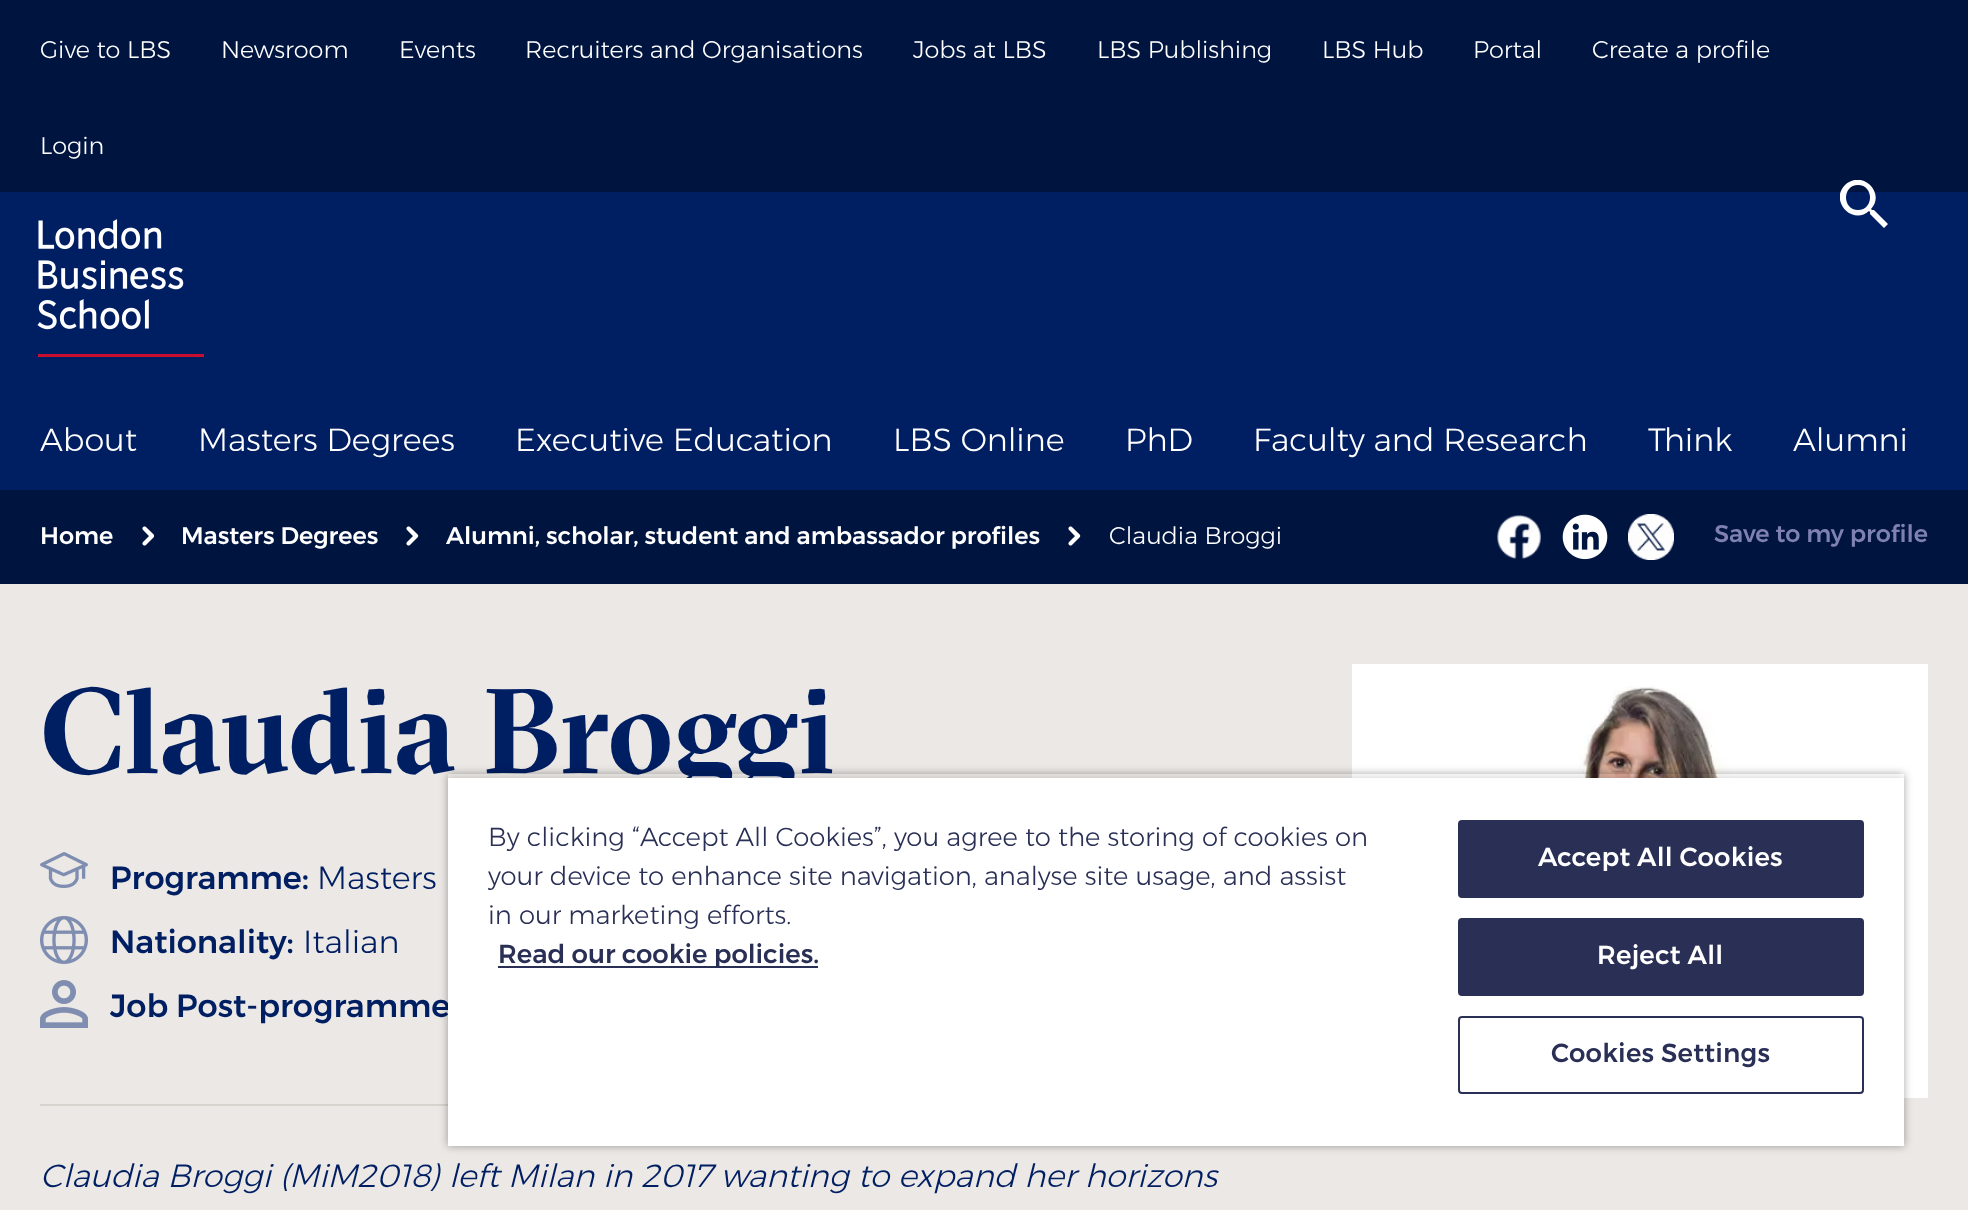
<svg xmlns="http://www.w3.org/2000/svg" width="1968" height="1210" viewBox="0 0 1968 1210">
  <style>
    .t1 { font: 300 24px Montserrat; fill: #fff; }
    .t2 { font: 300 32px Montserrat; fill: #fff; }
    .t3 { font: 500 24px Montserrat; fill: #fff; }
    .t4 { font: 500 24px Montserrat; fill: #7f82b0; }
    .t5 { font: bold 120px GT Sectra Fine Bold; fill: #001e62; }
    .t6 { font: 500 32px Montserrat; fill: #001e62; }
    .t7 { font: 300 32px Montserrat; fill: #001e62; }
    .t8 { font: italic 300 32px Montserrat; fill: #001e62; }
    .t9 { font: 300 26px Montserrat; fill: #292f55; }
    .t10 { font: 500 26px Montserrat; fill: #292f55; }
    .t11 { font: 500 26px Montserrat; letter-spacing: 0.25px; fill: #fff; }
    .t12 { font: 500 26px Montserrat; letter-spacing: 0.25px; fill: #292f55; }
  </style>
  <defs>
    <clipPath id="clip1"><rect x="1840" y="180" width="48" height="48"/></clipPath>
    <clipPath id="clip2"><path d="M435 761H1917V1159H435ZM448 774H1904V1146H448Z" clip-rule="evenodd"/></clipPath>
    <clipPath id="clip3"><rect x="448" y="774" width="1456" height="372"/></clipPath>
  </defs>
  <rect width="100%" height="100%" fill="#001e62"/>
  <rect x="0" y="0" width="1968" height="192" fill="#001440"/>
  <text x="40" y="58" class="t1">Give to LBS</text>
  <text x="221" y="58" class="t1">Newsroom</text>
  <text x="399" y="58" class="t1">Events</text>
  <text x="525" y="58" class="t1">Recruiters and Organisations</text>
  <text x="913" y="58" class="t1">Jobs at LBS</text>
  <text x="1097" y="58" class="t1">LBS Publishing</text>
  <text x="1322" y="58" class="t1">LBS Hub</text>
  <text x="1473" y="58" class="t1">Portal</text>
  <text x="1592" y="58" class="t1">Create a profile</text>
  <text x="40" y="154" class="t1">Login</text>
  <g clip-path="url(#clip1)">
    <path d="M1874 210H1872L1871 209C1886 193 1862 169 1845 185C1829 201 1853 226 1869 211L1870 212V214L1884 228L1888 224ZM1858 210C1842 210 1842 185 1858 185C1874 185 1874 210 1858 210Z" fill="#fff"/>
  </g>
  <image x="37" y="219" width="167" height="138" href="images/1.png"/>
  <text x="40" y="451" class="t2">About</text>
  <text x="198" y="451" class="t2">Masters Degrees</text>
  <text x="515" y="451" class="t2">Executive Education</text>
  <text x="893" y="451" class="t2">LBS Online</text>
  <text x="1125" y="451" class="t2">PhD</text>
  <text x="1253" y="451" class="t2">Faculty and Research</text>
  <text x="1648" y="451" class="t2">Think</text>
  <text x="1793" y="451" class="t2">Alumni</text>
  <rect x="0" y="584" width="1968" height="626" fill="#ebe8e5"/>
  <rect x="0" y="490" width="1968" height="94" fill="#001440"/>
  <text x="40" y="544" class="t3">Home</text>
  <image x="142" y="526" width="12" height="20" href="images/2.png"/>
  <text x="181" y="544" class="t3">Masters Degrees</text>
  <image x="406" y="526" width="13" height="20" href="images/3.png"/>
  <text x="446" y="544" class="t3">Alumni, scholar, student and ambassador profiles</text>
  <image x="1068" y="526" width="13" height="20" href="images/3.png"/>
  <text x="1109" y="544" class="t1">Claudia Broggi</text>
  <image x="1497" y="515" width="44" height="44" href="images/4.png"/>
  <image x="1562" y="514" width="46" height="46" href="images/5.png"/>
  <image x="1628" y="514" width="46" height="46" href="images/6.png"/>
  <text x="1714" y="542" class="t4">Save to my profile</text>
  <text x="40" y="773" class="t5">Claudia Broggi</text>
  <rect x="40" y="1104" width="408" height="2" fill="#d7d2cb"/>
  <image x="40" y="852" width="48" height="36" href="images/7.png"/>
  <text x="110" y="889" class="t6">Programme:</text>
  <text x="317" y="889" class="t7">Masters</text>
  <image x="40" y="916" width="48" height="48" href="images/8.png"/>
  <text x="110" y="953" class="t6">Nationality:</text>
  <text x="303" y="953" class="t7">Italian</text>
  <image x="40" y="980" width="48" height="48" href="images/9.png"/>
  <text x="110" y="1017" class="t6">Job Post-programme</text>
  <text x="40" y="1187" class="t8">Claudia Broggi (MiM2018) left Milan in 2017 wanting to expand her horizons</text>
  <rect x="1352" y="664" width="576" height="434" fill="#fff"/>
  <image x="1473" y="686" width="284" height="92" href="images/10.png"/>
  <g clip-path="url(#clip2)">
    <rect x="448" y="774" width="1456" height="372" fill="#00000059" filter="blur(4px)"/>
  </g>
  <g clip-path="url(#clip3)">
    <rect x="448" y="778" width="1456" height="368" fill="#00000033" filter="blur(4px)"/>
  </g>
  <rect x="448" y="778" width="1456" height="368" fill="#fff"/>
  <text x="488" y="846" class="t9">By clicking “Accept All Cookies”, you agree to the storing of cookies on</text>
  <text x="488" y="885" class="t9">your device to enhance site navigation, analyse site usage, and assist</text>
  <text x="488" y="924" class="t9">in our marketing efforts.</text>
  <rect x="498" y="966" width="320" height="2" fill="#292f55"/>
  <text x="498" y="963" class="t10">Read our cookie policies.</text>
  <rect x="1459" y="821" width="404" height="76" rx="3" fill="#292f55" stroke="#292f55" stroke-width="2"/>
  <text x="1538" y="866" class="t11">Accept All Cookies</text>
  <rect x="1459" y="919" width="404" height="76" rx="3" fill="#292f55" stroke="#292f55" stroke-width="2"/>
  <text x="1597" y="964" class="t11">Reject All</text>
  <rect x="1459" y="1017" width="404" height="76" rx="3" fill="none" stroke="#292f55" stroke-width="2"/>
  <text x="1551" y="1062" class="t12">Cookies Settings</text>
</svg>
